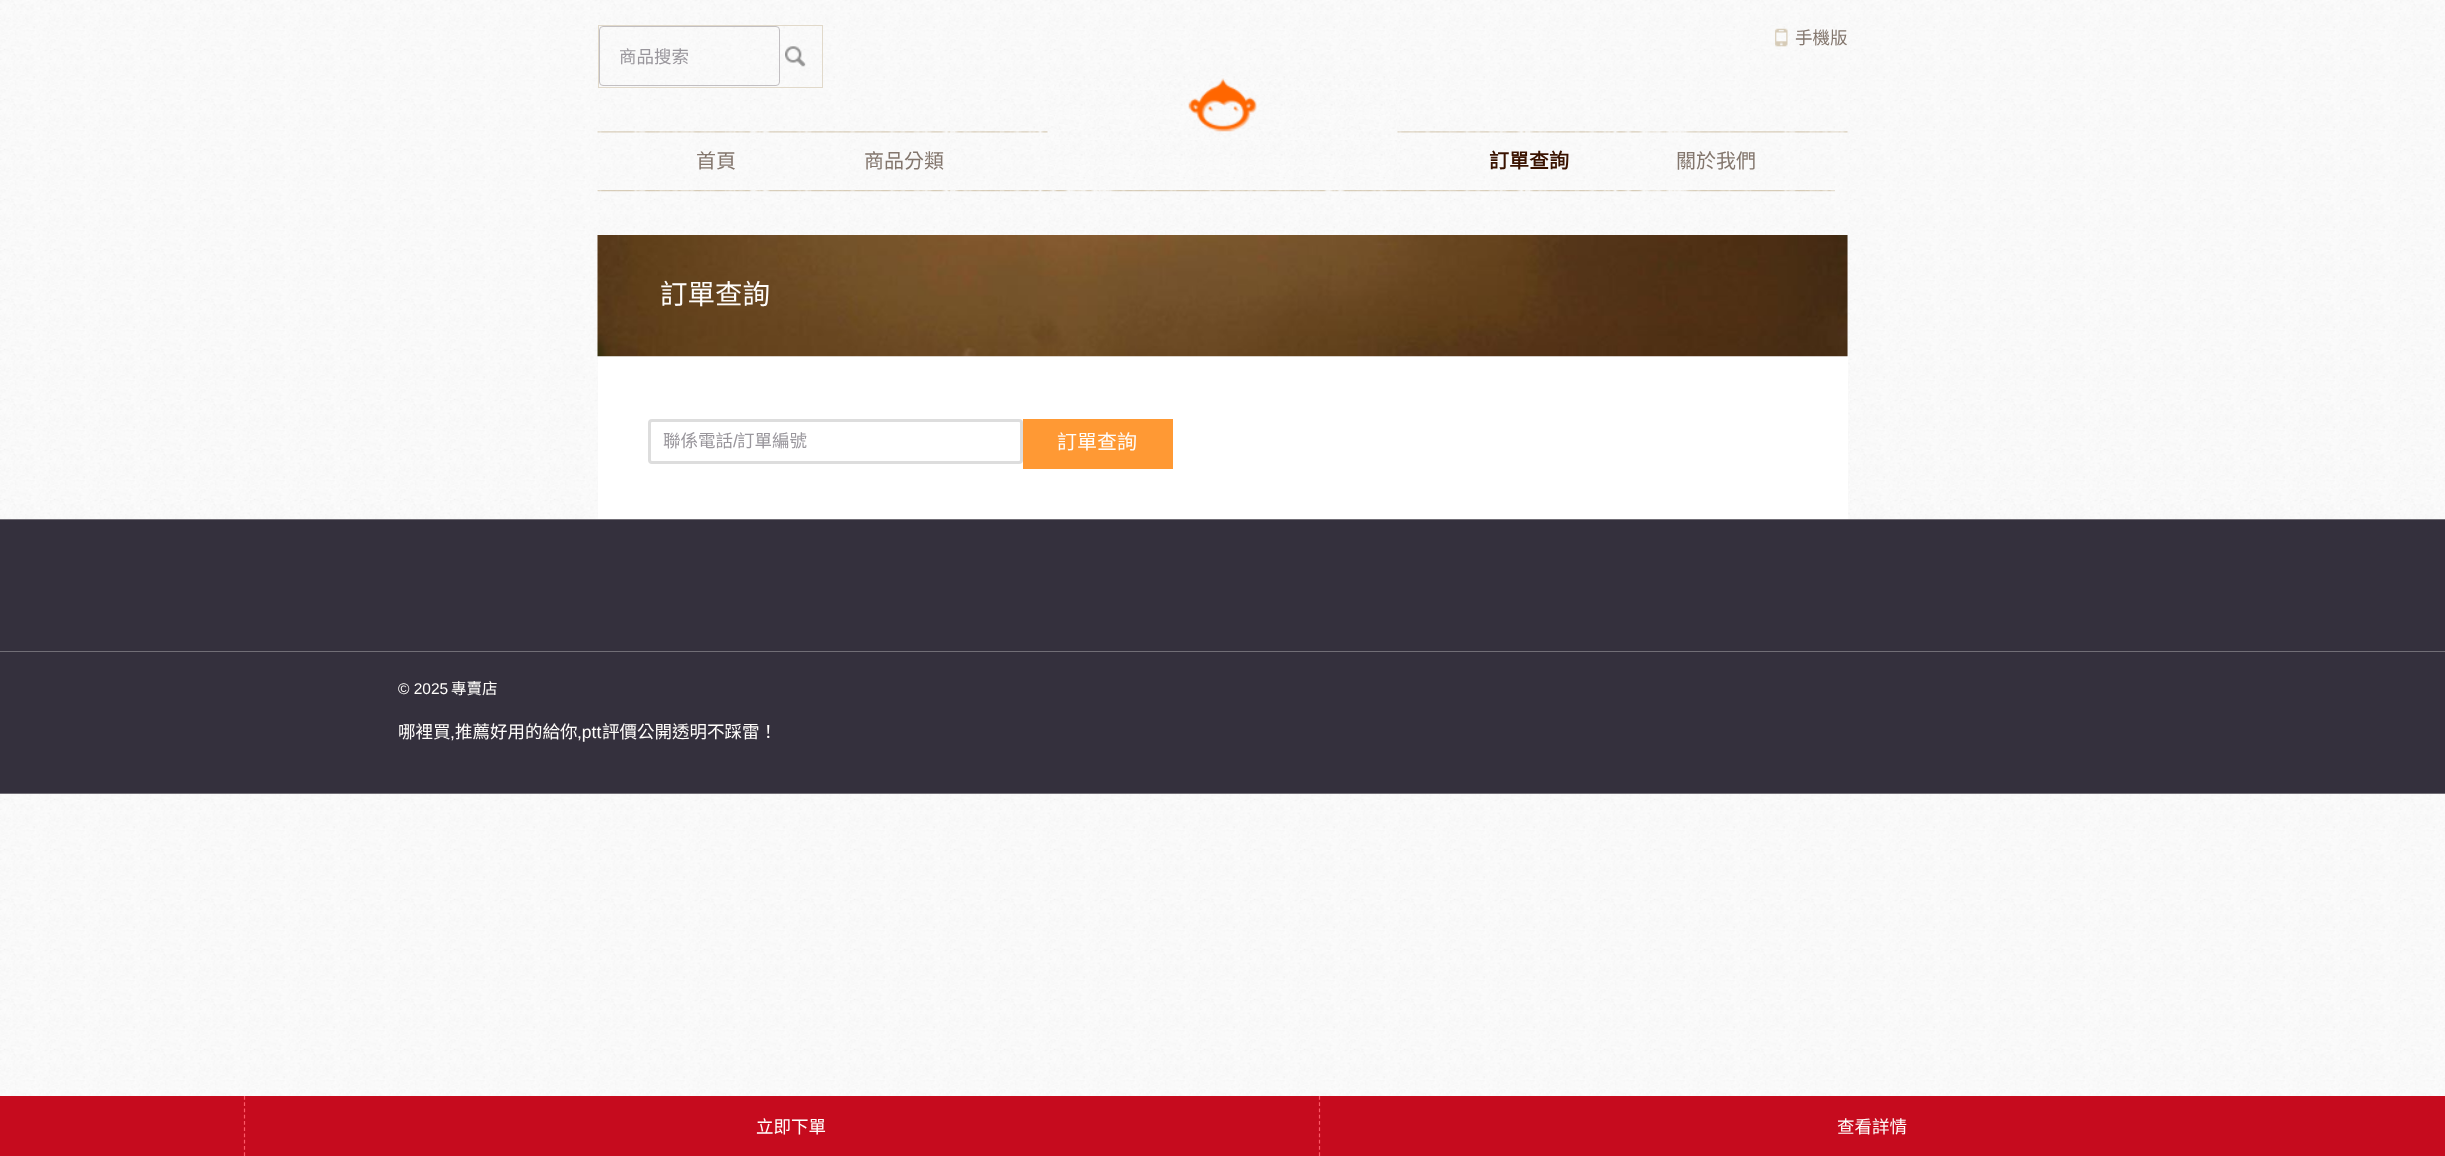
<svg xmlns="http://www.w3.org/2000/svg" width="2445" height="1156" viewBox="0 0 2445 1156">
  <style>
    .t1 { font: 17.5px Noto Sans CJK TC; fill: #83766d; }
    .t2 { font: 17.5px Noto Sans CJK TC; fill: #99969c; }
    .t3 { font: 20px Noto Sans CJK TC; fill: #83766d; }
    .t4 { font: bold 20px Noto Sans CJK TC; fill: #3a1300; }
    .t5 { font: 27.5px Noto Sans CJK TC; fill: #fffdfb; }
    .t6 { font: 17.5px Liberation Sans; fill: #99969c; }
    .t7 { font: 20px Noto Sans CJK TC; fill: #fffdfb; }
    .t8 { font: 15.5px Liberation Sans; fill: #fffdfb; }
    .t9 { font: 15.5px Noto Sans CJK TC; fill: #fffdfb; }
    .t10 { font: 17.5px Noto Sans CJK TC; fill: #fffdfb; }
    .t11 { font: 17.5px Liberation Sans; fill: #fffdfb; }
  </style>
  <rect width="100%" height="100%" fill="#fff"/>
  <image x="0" y="0" width="2445" height="1096" href="images/1.png"/>
  <image x="1775" y="28" width="13" height="19" href="images/2.png"/>
  <text x="1795" y="44" class="t1">手機版</text>
  <rect x="598.5" y="25.5" width="224" height="62" fill="none" stroke="#e1d9ca"/>
  <rect x="599.5" y="26.5" width="180" height="59" rx="3.5" fill="none" stroke="#c2bfc2"/>
  <text x="619" y="63" class="t2">商品搜索</text>
  <image x="785" y="46" width="21" height="21" href="images/3.png"/>
  <image x="597" y="131" width="1251" height="2" href="images/6.png"/>
  <image x="1047" y="79" width="351" height="98" href="images/4.png"/>
  <image x="1188" y="78" width="69" height="54" href="images/5.png"/>
  <image x="597" y="190" width="1238" height="2" href="images/7.png"/>
  <text x="696" y="168" class="t3">首頁</text>
  <text x="864" y="168" class="t3">商品分類</text>
  <text x="1489" y="168" class="t4">訂單查詢</text>
  <text x="1676" y="168" class="t3">關於我們</text>
  <rect x="1847" y="235" width="1" height="121" fill="#ededed"/>
  <rect x="598" y="356" width="1250" height="163" fill="#fff"/>
  <image x="597" y="235" width="1251" height="122" href="images/8.png"/>
  <text x="660" y="304" class="t5">訂單查詢</text>
  <rect x="649.5" y="420.5" width="372" height="42" rx="2.5" fill="none" stroke="#ddd" stroke-width="3"/>
  <text x="663" y="447" class="t2">聯係電話</text>
  <text x="733" y="447" class="t6">/</text>
  <text x="737" y="447" class="t2">訂單編號</text>
  <rect x="1023" y="419" width="150" height="50" fill="#ff9934"/>
  <text x="1057" y="449" class="t7">訂單查詢</text>
  <rect x="0" y="520" width="2445" height="273" fill="#34303d"/>
  <rect x="0" y="519" width="2445" height="1" fill="#716e76"/>
  <rect x="0" y="651" width="2445" height="1" fill="#716e76"/>
  <text x="398" y="694" class="t8">© 2025</text>
  <text x="451" y="694" class="t9">專賣店</text>
  <text x="398" y="738" class="t10">哪裡買</text>
  <text x="450" y="738" class="t11">,</text>
  <text x="455" y="738" class="t10">推薦好用的給你</text>
  <text x="577" y="738" class="t11">,ptt</text>
  <text x="602" y="738" class="t10">評價公開透明不踩雷！</text>
  <rect x="0" y="793" width="2445" height="1" fill="#716e76"/>
  <rect x="0" y="1096" width="2445" height="60" fill="#c60b1e"/>
  <path d="M244.5 1096V1156" fill="none" stroke="#fe5967" stroke-width="1.2" stroke-dasharray="3.75 2.5"/>
  <path d="M1319.5 1096V1156" fill="none" stroke="#fe5967" stroke-width="1.2" stroke-dasharray="3.75 2.5"/>
  <text x="756" y="1133" class="t10">立即下單</text>
  <text x="1837" y="1133" class="t10">查看詳情</text>
</svg>
